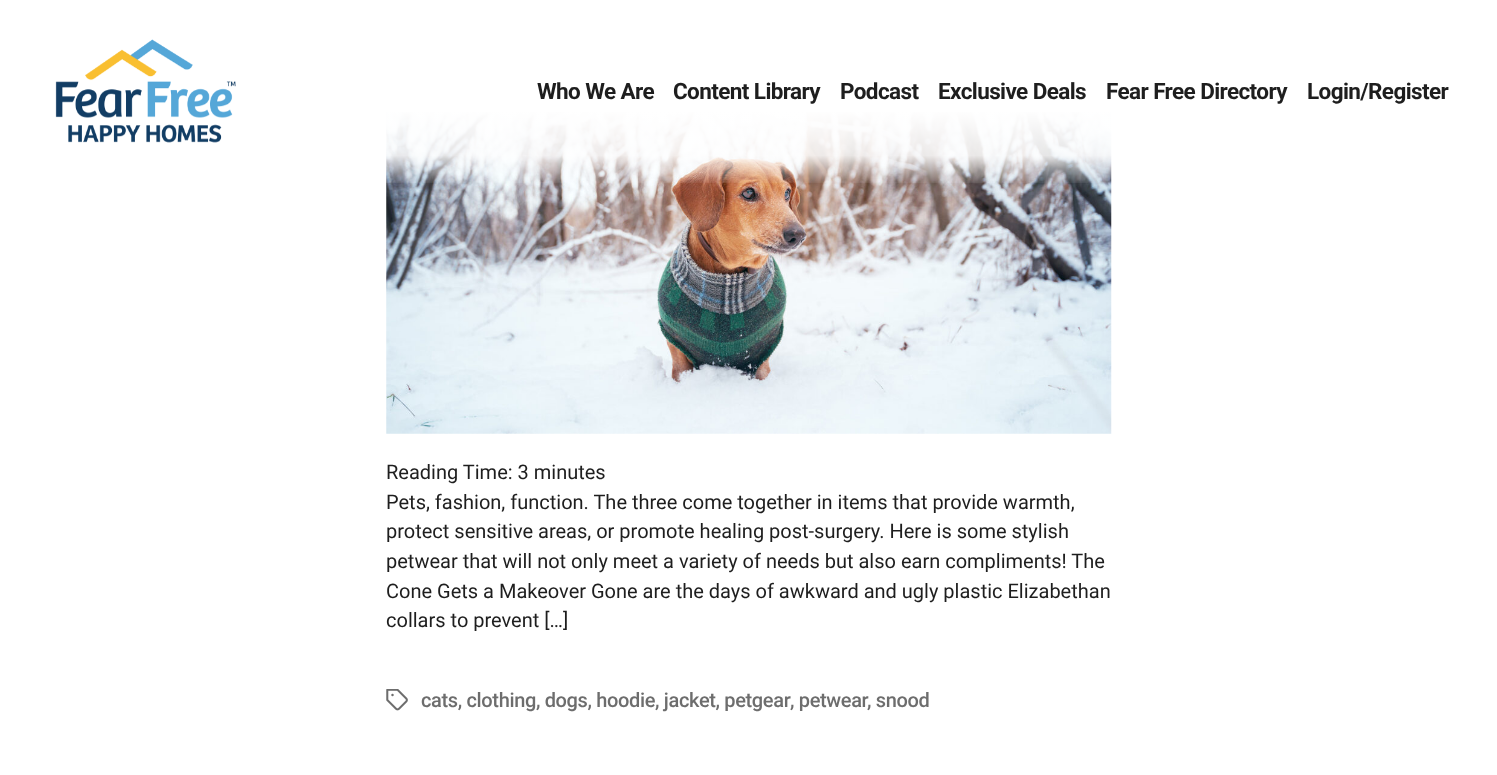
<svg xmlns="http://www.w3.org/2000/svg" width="1497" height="775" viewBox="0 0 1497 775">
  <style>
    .t1 { font: bold 22.5px Roboto; letter-spacing: -0.6px; fill: #1e1e1e; }
    .t2 { font: 20px Roboto; fill: #1e1e1e; }
    .t3 { font: 500 20px Roboto; letter-spacing: -0.35px; fill: #6d6d6d; }
  </style>
  <defs>
    <linearGradient id="g1" gradientUnits="userSpaceOnUse" x1="749" y1="0" x2="749" y2="183"><stop offset="0" stop-color="#fff"/><stop offset="0.6" stop-color="#fff"/><stop offset="0.85" stop-color="#fff" stop-opacity="0.86"/><stop offset="0.88" stop-color="#fff" stop-opacity="0.7"/><stop offset="1" stop-color="#fff" stop-opacity="0.06"/></linearGradient>
  </defs>
  <rect width="100%" height="100%" fill="#fff"/>
  <image x="386" y="112" width="726" height="322" href="images/2.png"/>
  <rect x="386" y="112" width="726" height="71" fill="url(#g1)"/>
  <image x="55" y="39" width="181" height="104" href="images/1.png"/>
  <text x="537" y="99" class="t1">Who We Are</text>
  <text x="673" y="99" class="t1">Content Library</text>
  <text x="840" y="99" class="t1">Podcast</text>
  <text x="938" y="99" class="t1">Exclusive Deals</text>
  <text x="1106" y="99" class="t1">Fear Free Directory</text>
  <text x="1307" y="99" class="t1">Login/Register</text>
  <text x="386" y="479" class="t2">Reading Time: 3 minutes</text>
  <text x="386" y="509" class="t2">Pets, fashion, function. The three come together in items that provide warmth,</text>
  <text x="386" y="538" class="t2">protect sensitive areas, or promote healing post-surgery. Here is some stylish</text>
  <text x="386" y="568" class="t2">petwear that will not only meet a variety of needs but also earn compliments! The</text>
  <text x="386" y="598" class="t2">Cone Gets a Makeover Gone are the days of awkward and ugly plastic Elizabethan</text>
  <text x="386" y="627" class="t2">collars to prevent […]</text>
  <image x="386" y="689" width="22" height="22" href="images/3.png"/>
  <text x="421" y="707" class="t3">cats, clothing, dogs, hoodie, jacket, petgear</text>
  <text x="790" y="707" class="t3">, petwear</text>
  <text x="867" y="707" class="t3">, snood</text>
</svg>
